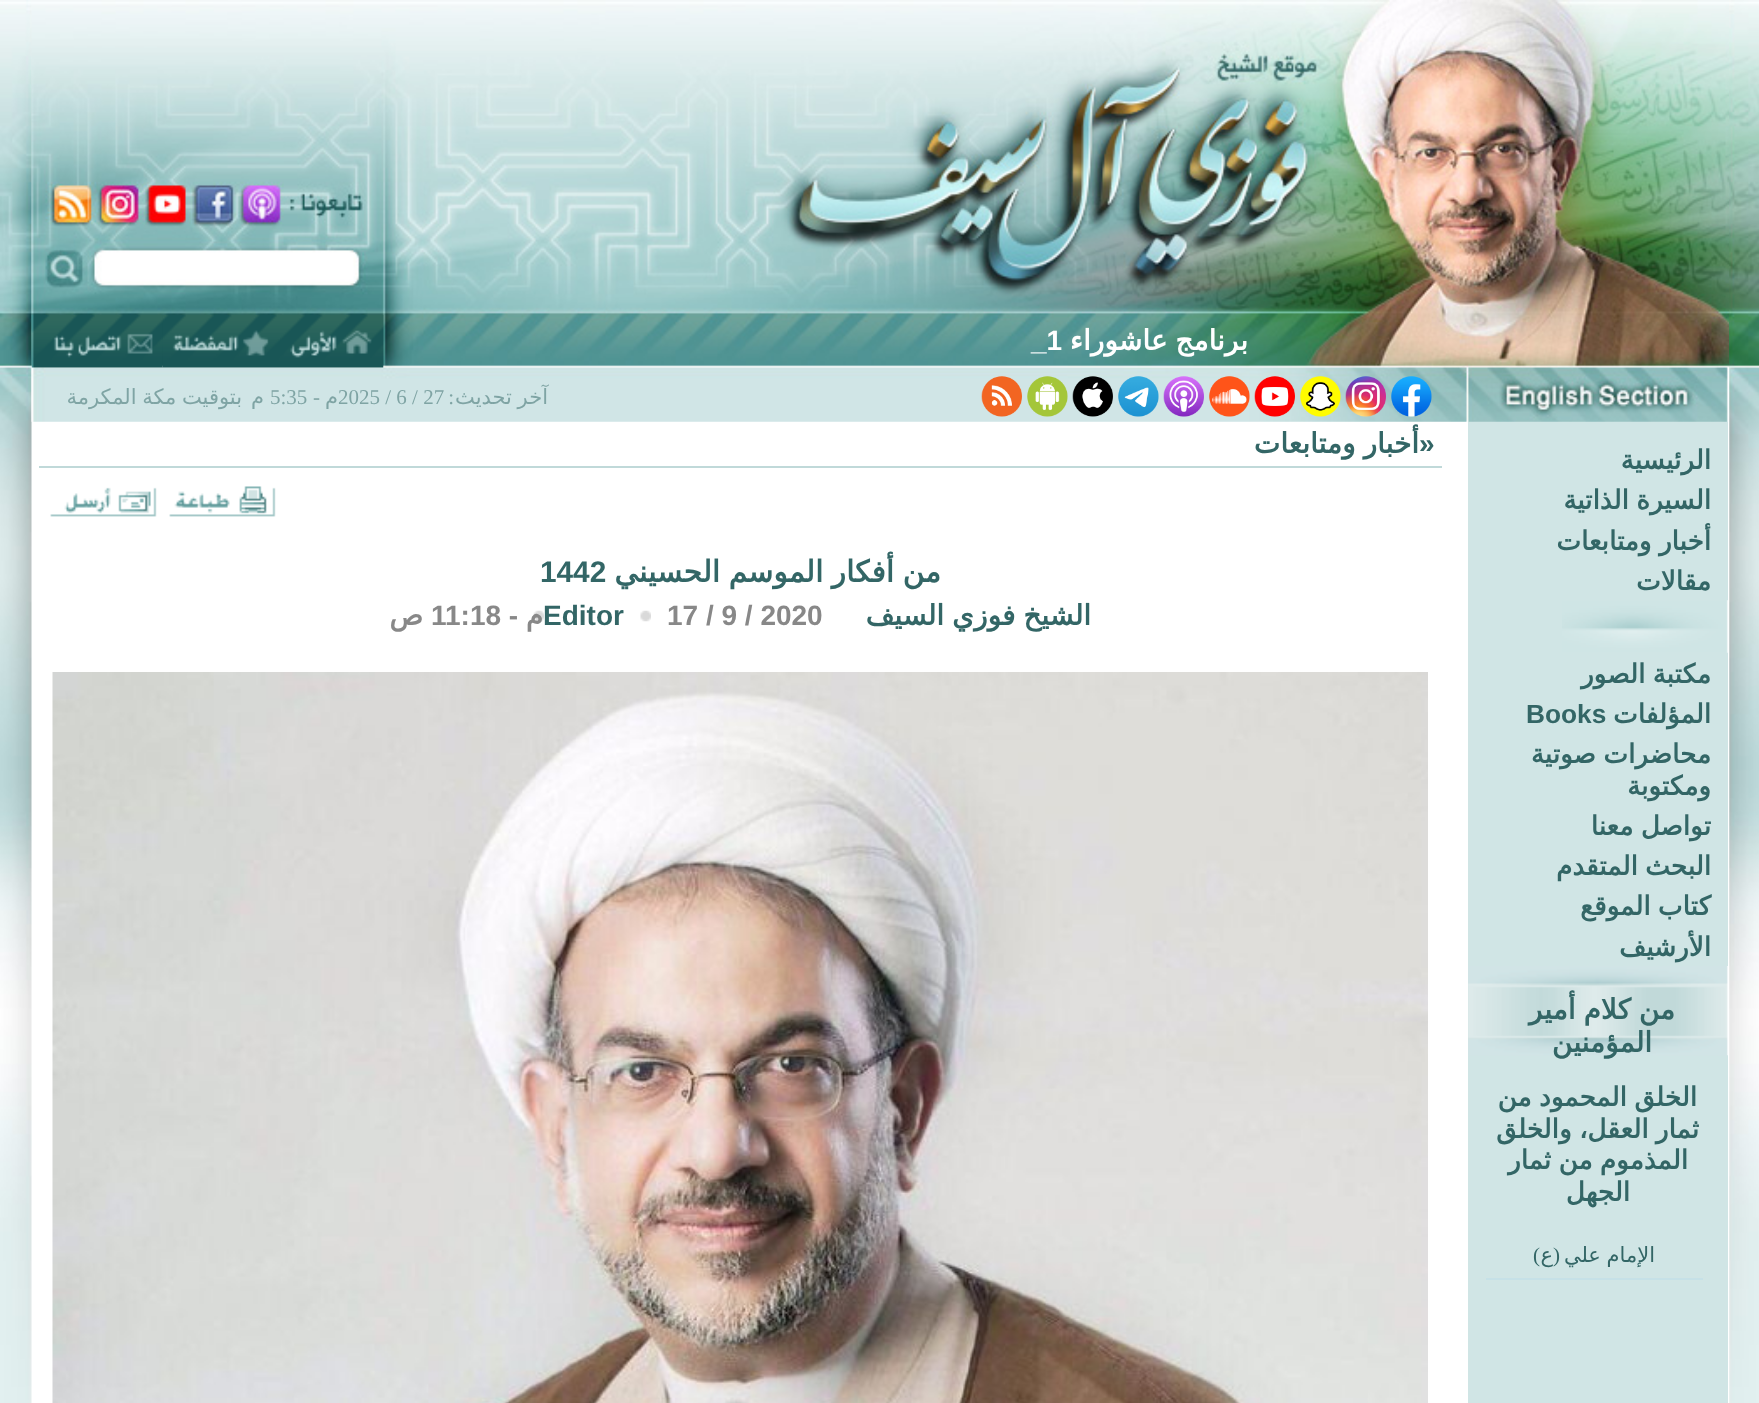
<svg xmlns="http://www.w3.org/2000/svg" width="1759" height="1403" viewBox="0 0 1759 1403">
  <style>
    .t1 { font: bold 28px DejaVu Sans; direction: rtl; fill: #fff; }
    .t2 { font: bold 28px Liberation Sans; fill: #fff; }
    .t3 { font: 21px DejaVu Sans; direction: rtl; fill: #7fa4a4; }
    .t4 { font: 21px Liberation Serif; direction: rtl; fill: #7fa4a4; }
    .t5 { font: 21px Liberation Serif; fill: #7fa4a4; }
    .t6 { font: bold 26.25px DejaVu Sans; direction: rtl; fill: #366; }
    .t7 { font: bold 26.25px Liberation Sans; fill: #366; }
    .t8 { font: bold 28px DejaVu Sans; direction: rtl; fill: #366; }
    .t9 { font: 21px DejaVu Sans; direction: rtl; fill: #366; }
    .t10 { font: 21px Liberation Serif; direction: rtl; fill: #366; }
    .t11 { font: bold 28px Liberation Sans; fill: #366; }
    .t12 { font: bold 29.75px DejaVu Sans; direction: rtl; fill: #366; }
    .t13 { font: bold 29.75px Liberation Sans; fill: #366; }
    .t14 { font: bold 28px Liberation Sans; fill: #888; }
    .t15 { font: bold 28px DejaVu Sans; direction: rtl; fill: #888; }
    .t16 { font: bold 28px Liberation Sans; direction: rtl; fill: #888; }
  </style>
  <rect width="100%" height="100%" fill="#fff"/>
  <image x="0" y="0" width="1759" height="1403" href="images/1.png"/>
  <rect x="32" y="421" width="1697" height="982" fill="#fff"/>
  <rect x="1468" y="421" width="260" height="982" fill="#d0e5e5"/>
  <image x="31" y="0" width="1698" height="422" href="images/2.png"/>
  <text x="1248" y="350" word-spacing="-1" class="t1">برنامج عاشوراء</text>
  <text x="1031" y="350" class="t2">_1</text>
  <image x="280" y="315" width="104" height="53" href="images/3.png"/>
  <image x="162" y="315" width="118" height="53" href="images/4.png"/>
  <image x="31" y="315" width="132" height="53" href="images/5.png"/>
  <image x="1391" y="376" width="41" height="41" href="images/6.png"/>
  <image x="1345" y="376" width="41" height="41" href="images/7.png"/>
  <image x="1300" y="376" width="41" height="41" href="images/8.png"/>
  <image x="1254" y="376" width="41" height="41" href="images/9.png"/>
  <image x="1209" y="376" width="41" height="41" href="images/10.png"/>
  <image x="1163" y="376" width="41" height="41" href="images/11.png"/>
  <image x="1118" y="376" width="41" height="41" href="images/12.png"/>
  <image x="1072" y="376" width="41" height="41" href="images/13.png"/>
  <image x="1027" y="376" width="41" height="41" href="images/14.png"/>
  <image x="981" y="376" width="41" height="41" href="images/15.png"/>
  <text x="548" y="404" word-spacing="-1" class="t3">آخر تحديث</text>
  <text x="454" y="404" class="t4">:</text>
  <text x="338" y="404" class="t5">2025 / 6 / 27</text>
  <text x="338" y="404" class="t3">م</text>
  <text x="320" y="404" class="t4">-</text>
  <text x="270" y="404" class="t5">5:35</text>
  <text x="264" y="404" class="t3">م</text>
  <text x="242" y="404" word-spacing="-1" class="t3">بتوقيت مكة المكرمة</text>
  <rect x="1468" y="439" width="260" height="163" fill="#fff"/>
  <rect x="1468" y="439" width="260" height="163" fill="#d0e5e5"/>
  <text x="1711" y="469" class="t6">الرئيسية</text>
  <text x="1711" y="509" word-spacing="-1" class="t6">السيرة الذاتية</text>
  <text x="1711" y="550" word-spacing="-1" class="t6">أخبار ومتابعات</text>
  <text x="1711" y="590" class="t6">مقالات</text>
  <image x="1562" y="600" width="166" height="53" href="images/16.png"/>
  <rect x="1468" y="653" width="260" height="315" fill="#fff"/>
  <rect x="1468" y="653" width="260" height="315" fill="#d0e5e5"/>
  <text x="1711" y="683" word-spacing="-1" class="t6">مكتبة الصور</text>
  <text x="1711" y="723" class="t6">المؤلفات</text>
  <text x="1526" y="723" class="t7">Books</text>
  <text x="1711" y="763" word-spacing="-1" class="t6">محاضرات صوتية</text>
  <text x="1711" y="795" class="t6">ومكتوبة</text>
  <text x="1711" y="835" word-spacing="-1" class="t6">تواصل معنا</text>
  <text x="1711" y="875" word-spacing="-1" class="t6">البحث المتقدم</text>
  <text x="1711" y="915" word-spacing="-1" class="t6">كتاب الموقع</text>
  <text x="1711" y="956" class="t6">الأرشيف</text>
  <image x="1468" y="966" width="260" height="90" href="images/17.png"/>
  <text x="1675" y="1019" word-spacing="-1" class="t8">من كلام أمير</text>
  <text x="1652" y="1052" class="t8">المؤمنين</text>
  <text x="1697" y="1106" word-spacing="-1" class="t6">الخلق المحمود من</text>
  <text x="1699" y="1138" word-spacing="-1" class="t6">ثمار العقل، والخلق</text>
  <text x="1688" y="1169" word-spacing="-1" class="t6">المذموم من ثمار</text>
  <text x="1630" y="1201" class="t6">الجهل</text>
  <rect x="1486" y="1278" width="217" height="2" fill="#c6e1e7"/>
  <text x="1655" y="1262" word-spacing="-1" class="t9">الإمام علي</text>
  <text x="1560" y="1262" class="t10">(</text>
  <text x="1553" y="1262" class="t9">ع</text>
  <text x="1540" y="1262" class="t10">)</text>
  <rect x="39" y="466" width="1403" height="2" fill="#c0d9d9"/>
  <text x="1419" y="453" class="t11">»</text>
  <text x="1419" y="453" word-spacing="-1" class="t8">أخبار ومتابعات</text>
  <image x="169" y="486" width="107" height="31" href="images/18.png"/>
  <image x="50" y="487" width="107" height="30" href="images/19.png"/>
  <text x="941" y="582" word-spacing="-1" class="t12">من أفكار الموسم الحسيني</text>
  <text x="540" y="582" class="t13">1442</text>
  <text x="1091" y="625" word-spacing="-1" class="t8">الشيخ فوزي السيف</text>
  <text x="667" y="625" class="t14">17 / 9 / 2020</text>
  <image x="640" y="610" width="11" height="12" href="images/20.png"/>
  <text x="543" y="625" class="t11">Editor</text>
  <image x="533" y="610" width="11" height="12" href="images/21.png"/>
  <text x="431" y="625" class="t14">11:18</text>
  <text x="423" y="625" class="t15">ص</text>
  <text x="543" y="625" class="t15">م</text>
  <text x="518" y="625" class="t16">-</text>
  <image x="52" y="672" width="1376" height="731" href="images/22.png"/>
</svg>
